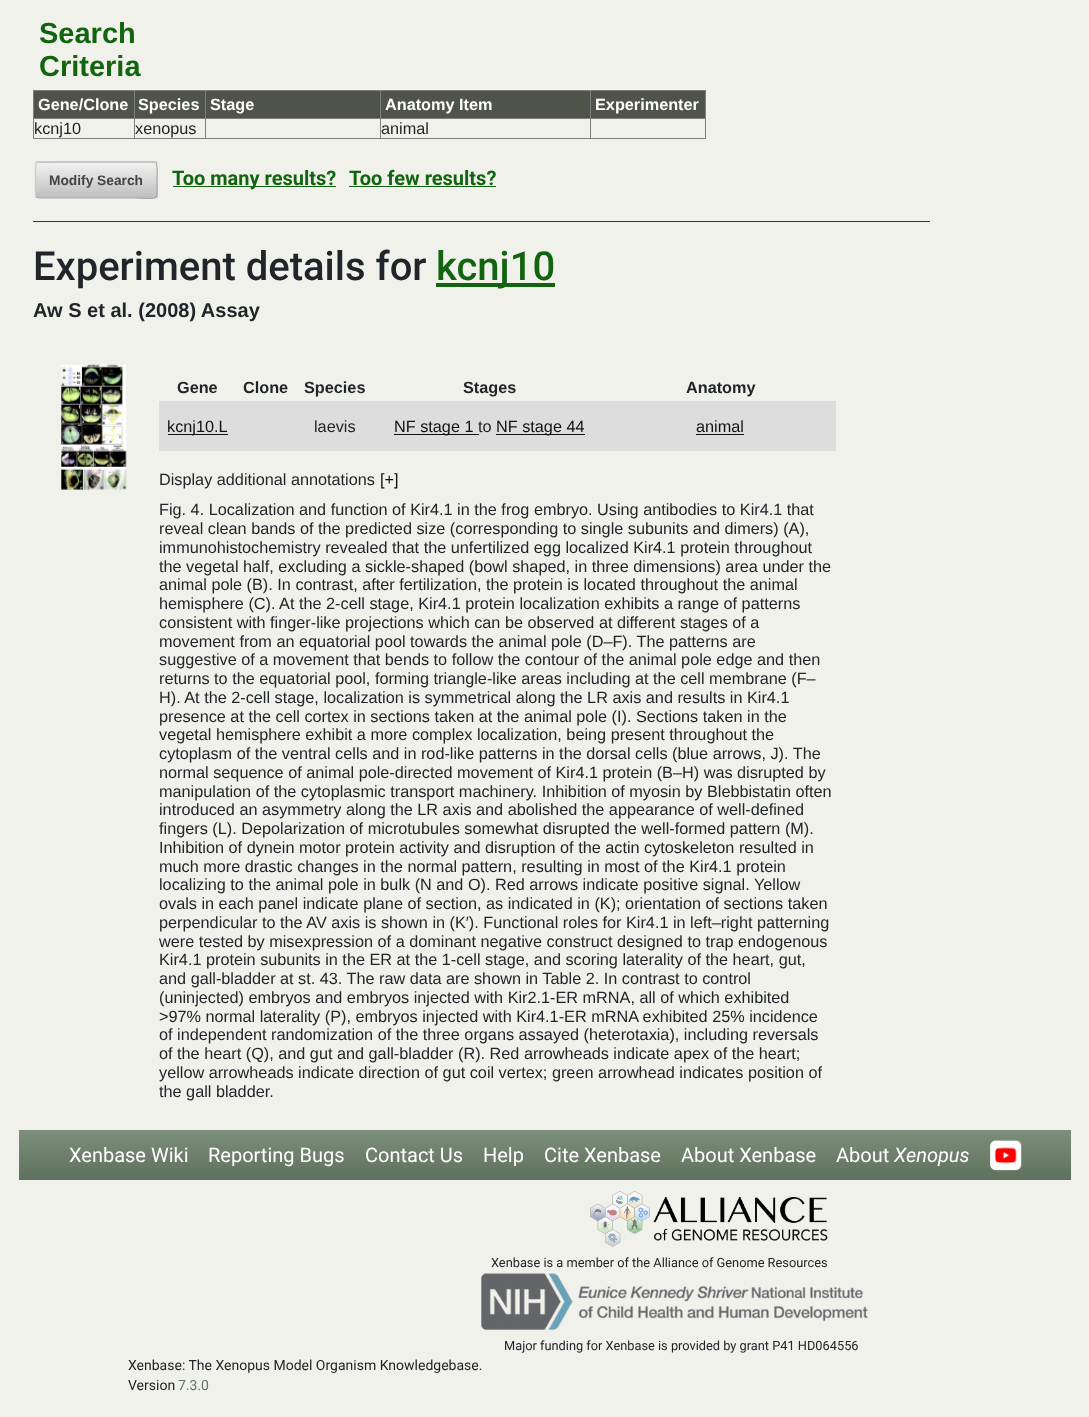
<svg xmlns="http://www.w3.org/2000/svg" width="1089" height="1417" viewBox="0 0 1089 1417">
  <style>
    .t1 { font: bold 29px Liberation Sans; fill: #136411; }
    .t2 { font: bold 16.25px Liberation Sans; fill: #fff; }
    .t3 { font: 16.25px Liberation Sans; fill: #212529; }
    .t4 { font: bold 13.75px Liberation Sans; fill: #444; }
    .t5 { font: bold 20px Roboto; fill: #136411; }
    .t6 { font: 500 40px Roboto; fill: #212529; }
    .t7 { font: 500 40px Roboto; fill: #136411; }
    .t8 { font: bold 20px Liberation Sans; fill: #212529; }
    .t9 { font: bold 16.25px Liberation Sans; fill: #212529; }
    .t10 { font: 16.25px Liberation Sans; fill: #111; }
    .t11 { font: 20px Roboto; fill: #fff; }
    .t12 { font: italic 20px Roboto; fill: #fff; }
    .t13 { font: 12.8px Roboto; fill: #212529; }
    .t14 { font: 14px Roboto; fill: #212529; }
    .t15 { font: 14px Roboto; fill: #647562; }
  </style>
  <defs>
    <clipPath id="clip1"><rect x="35" y="161" width="123" height="38" rx="4"/></clipPath>
    <linearGradient id="g1" gradientUnits="userSpaceOnUse" x1="96" y1="128" x2="96" y2="163"><stop offset="0" stop-color="#f1f1f1"/><stop offset="1" stop-color="#bebebe"/></linearGradient>
    <linearGradient id="g2" gradientUnits="userSpaceOnUse" x1="96" y1="163" x2="96" y2="198"><stop offset="0" stop-color="#f1f1f1"/><stop offset="1" stop-color="#bebebe"/></linearGradient>
    <linearGradient id="g3" gradientUnits="userSpaceOnUse" x1="96" y1="198" x2="96" y2="233"><stop offset="0" stop-color="#f1f1f1"/><stop offset="1" stop-color="#bebebe"/></linearGradient>
    <linearGradient id="g4" gradientUnits="userSpaceOnUse" x1="545" y1="1130" x2="545" y2="1180"><stop offset="0" stop-color="#7d8e7b"/><stop offset="1" stop-color="#5f705d"/></linearGradient>
  </defs>
  <rect width="100%" height="100%" fill="#f0f1ea"/>
  <text x="39" y="43" class="t1">Search</text>
  <text x="39" y="76" class="t1">Criteria</text>
  <rect x="33" y="90" width="673" height="1" fill="#808080"/>
  <rect x="705" y="90" width="1" height="49" fill="#808080"/>
  <rect x="33" y="138" width="673" height="1" fill="#808080"/>
  <rect x="33" y="90" width="1" height="49" fill="#808080"/>
  <rect x="34" y="91" width="100" height="27" fill="#505349"/>
  <text x="38" y="110" class="t2">Gene/Clone</text>
  <rect x="135" y="91" width="70" height="27" fill="#505349"/>
  <rect x="590" y="118" width="116" height="1" fill="#808080"/>
  <rect x="590" y="118" width="1" height="21" fill="#808080"/>
  <rect x="380" y="118" width="211" height="1" fill="#808080"/>
  <rect x="380" y="118" width="1" height="21" fill="#808080"/>
  <rect x="205" y="118" width="176" height="1" fill="#808080"/>
  <rect x="205" y="118" width="1" height="21" fill="#808080"/>
  <rect x="134" y="118" width="72" height="1" fill="#808080"/>
  <rect x="134" y="118" width="1" height="21" fill="#808080"/>
  <rect x="33" y="118" width="102" height="1" fill="#808080"/>
  <rect x="134" y="90" width="1" height="29" fill="#808080"/>
  <text x="138" y="110" class="t2">Species</text>
  <rect x="206" y="91" width="174" height="27" fill="#505349"/>
  <rect x="205" y="90" width="1" height="29" fill="#808080"/>
  <text x="210" y="110" class="t2">Stage</text>
  <rect x="381" y="91" width="209" height="27" fill="#505349"/>
  <rect x="380" y="90" width="1" height="29" fill="#808080"/>
  <text x="385" y="110" class="t2">Anatomy Item</text>
  <rect x="591" y="91" width="114" height="27" fill="#505349"/>
  <rect x="590" y="90" width="1" height="29" fill="#808080"/>
  <text x="595" y="110" class="t2">Experimenter</text>
  <text x="34" y="134" class="t3">kcnj10</text>
  <text x="135" y="134" class="t3">xenopus</text>
  <text x="381" y="134" class="t3">animal</text>
  <g clip-path="url(#clip1)">
    <rect x="35" y="161" width="123" height="2" fill="url(#g1)"/>
    <rect x="35" y="163" width="123" height="35" fill="url(#g2)"/>
    <rect x="35" y="198" width="123" height="1" fill="url(#g3)"/>
  </g>
  <path d="M156 163C158 165 157 177 157 180C157 203 160.5 198 134.5 198H39L36.5 197" fill="none" stroke="#aaa" stroke-width="1.2"/>
  <path d="M36.5 197C34.5 195 35.5 183 35.5 180C35.5 157 32 162 58 162H154L156 163" fill="none" stroke="#ccc" stroke-width="1.2"/>
  <text x="49" y="185" class="t4">Modify Search</text>
  <rect x="173" y="186" width="163" height="1" fill="#136411"/>
  <text x="172" y="185" class="t5">Too many results?</text>
  <text x="349" y="185" class="t5">Too few results?</text>
  <rect x="349" y="186" width="147" height="1" fill="#136411"/>
  <rect x="33" y="221" width="897" height="1" fill="#005c00"/>
  <text x="33" y="280" class="t6">Experiment details for</text>
  <rect x="436" y="283" width="119" height="4" fill="#136411"/>
  <text x="436" y="280" class="t7">kcnj10</text>
  <text x="33" y="317" class="t8">Aw S et al. (2008) Assay</text>
  <image x="61" y="364" width="66" height="126" href="images/1.png"/>
  <text x="177" y="393" class="t9">Gene</text>
  <text x="243" y="393" class="t9">Clone</text>
  <text x="304" y="393" class="t9">Species</text>
  <text x="463" y="393" class="t9">Stages</text>
  <text x="686" y="393" class="t9">Anatomy</text>
  <rect x="159" y="401" width="677" height="50" fill="#ddd"/>
  <rect x="168" y="434" width="60" height="1" fill="#111"/>
  <text x="167" y="432" class="t10">kcnj10.L</text>
  <text x="314" y="432" class="t3">laevis</text>
  <rect x="394" y="434" width="85" height="1" fill="#111"/>
  <text x="394" y="432" class="t10">NF stage 1</text>
  <text x="478" y="432" class="t3">to</text>
  <rect x="496" y="434" width="89" height="1" fill="#111"/>
  <text x="496" y="432" class="t10">NF stage 44</text>
  <text x="696" y="432" class="t10">animal</text>
  <rect x="696" y="434" width="48" height="1" fill="#111"/>
  <text x="159" y="485" class="t3">Display additional annotations</text>
  <text x="380" y="485" class="t10">[+]</text>
  <text x="159" y="515" class="t3">Fig. 4. Localization and function of Kir4.1 in the frog embryo. Using antibodies to Kir4.1 that</text>
  <text x="159" y="534" class="t3">reveal clean bands of the predicted size (corresponding to single subunits and dimers) (A),</text>
  <text x="159" y="553" class="t3">immunohistochemistry revealed that the unfertilized egg localized Kir4.1 protein throughout</text>
  <text x="159" y="572" class="t3">the vegetal half, excluding a sickle-shaped (bowl shaped, in three dimensions) area under the</text>
  <text x="159" y="590" class="t3">animal pole (B). In contrast, after fertilization, the protein is located throughout the animal</text>
  <text x="159" y="609" class="t3">hemisphere (C). At the 2-cell stage, Kir4.1 protein localization exhibits a range of patterns</text>
  <text x="159" y="628" class="t3">consistent with finger-like projections which can be observed at different stages of a</text>
  <text x="159" y="647" class="t3">movement from an equatorial pool towards the animal pole (D–F). The patterns are</text>
  <text x="159" y="665" class="t3">suggestive of a movement that bends to follow the contour of the animal pole edge and then</text>
  <text x="159" y="684" class="t3">returns to the equatorial pool, forming triangle-like areas including at the cell membrane (F–</text>
  <text x="159" y="703" class="t3">H). At the 2-cell stage, localization is symmetrical along the LR axis and results in Kir4.1</text>
  <text x="159" y="722" class="t3">presence at the cell cortex in sections taken at the animal pole (I). Sections taken in the</text>
  <text x="159" y="740" class="t3">vegetal hemisphere exhibit a more complex localization, being present throughout the</text>
  <text x="159" y="759" class="t3">cytoplasm of the ventral cells and in rod-like patterns in the dorsal cells (blue arrows, J). The</text>
  <text x="159" y="778" class="t3">normal sequence of animal pole-directed movement of Kir4.1 protein (B–H) was disrupted by</text>
  <text x="159" y="797" class="t3">manipulation of the cytoplasmic transport machinery. Inhibition of myosin by Blebbistatin often</text>
  <text x="159" y="815" class="t3">introduced an asymmetry along the LR axis and abolished the appearance of well-defined</text>
  <text x="159" y="834" class="t3">fingers (L). Depolarization of microtubules somewhat disrupted the well-formed pattern (M).</text>
  <text x="159" y="853" class="t3">Inhibition of dynein motor protein activity and disruption of the actin cytoskeleton resulted in</text>
  <text x="159" y="872" class="t3">much more drastic changes in the normal pattern, resulting in most of the Kir4.1 protein</text>
  <text x="159" y="890" class="t3">localizing to the animal pole in bulk (N and O). Red arrows indicate positive signal. Yellow</text>
  <text x="159" y="909" class="t3">ovals in each panel indicate plane of section, as indicated in (K); orientation of sections taken</text>
  <text x="159" y="928" class="t3">perpendicular to the AV axis is shown in (K′). Functional roles for Kir4.1 in left–right patterning</text>
  <text x="159" y="947" class="t3">were tested by misexpression of a dominant negative construct designed to trap endogenous</text>
  <text x="159" y="965" class="t3">Kir4.1 protein subunits in the ER at the 1-cell stage, and scoring laterality of the heart, gut,</text>
  <text x="159" y="984" class="t3">and gall-bladder at st. 43. The raw data are shown in Table 2. In contrast to control</text>
  <text x="159" y="1003" class="t3">(uninjected) embryos and embryos injected with Kir2.1-ER mRNA, all of which exhibited</text>
  <text x="159" y="1022" class="t3">&gt;97% normal laterality (P), embryos injected with Kir4.1-ER mRNA exhibited 25% incidence</text>
  <text x="159" y="1040" class="t3">of independent randomization of the three organs assayed (heterotaxia), including reversals</text>
  <text x="159" y="1059" class="t3">of the heart (Q), and gut and gall-bladder (R). Red arrowheads indicate apex of the heart;</text>
  <text x="159" y="1078" class="t3">yellow arrowheads indicate direction of gut coil vertex; green arrowhead indicates position of</text>
  <text x="159" y="1097" class="t3">the gall bladder.</text>
  <rect x="19" y="1130" width="1052" height="50" fill="url(#g4)"/>
  <text x="69" y="1162" class="t11">Xenbase Wiki</text>
  <text x="208" y="1162" class="t11">Reporting Bugs</text>
  <text x="365" y="1162" class="t11">Contact Us</text>
  <text x="483" y="1162" class="t11">Help</text>
  <text x="544" y="1162" class="t11">Cite Xenbase</text>
  <text x="681" y="1162" class="t11">About Xenbase</text>
  <text x="836" y="1162" class="t11">About</text>
  <text x="894" y="1162" class="t12">Xenopus</text>
  <image x="990" y="1139" width="32" height="32" href="images/2.png"/>
  <image x="590" y="1190" width="238" height="57" href="images/3.png"/>
  <text x="491" y="1267" class="t13">Xenbase is a member of the Alliance of Genome Resources</text>
  <image x="481" y="1273" width="387" height="57" href="images/4.png"/>
  <text x="504" y="1350" class="t13">Major funding for Xenbase is provided by grant P41 HD064556</text>
  <text x="128" y="1370" class="t14">Xenbase: The Xenopus Model Organism Knowledgebase.</text>
  <text x="128" y="1390" class="t14">Version</text>
  <text x="178" y="1390" class="t15">7.3.0</text>
</svg>
